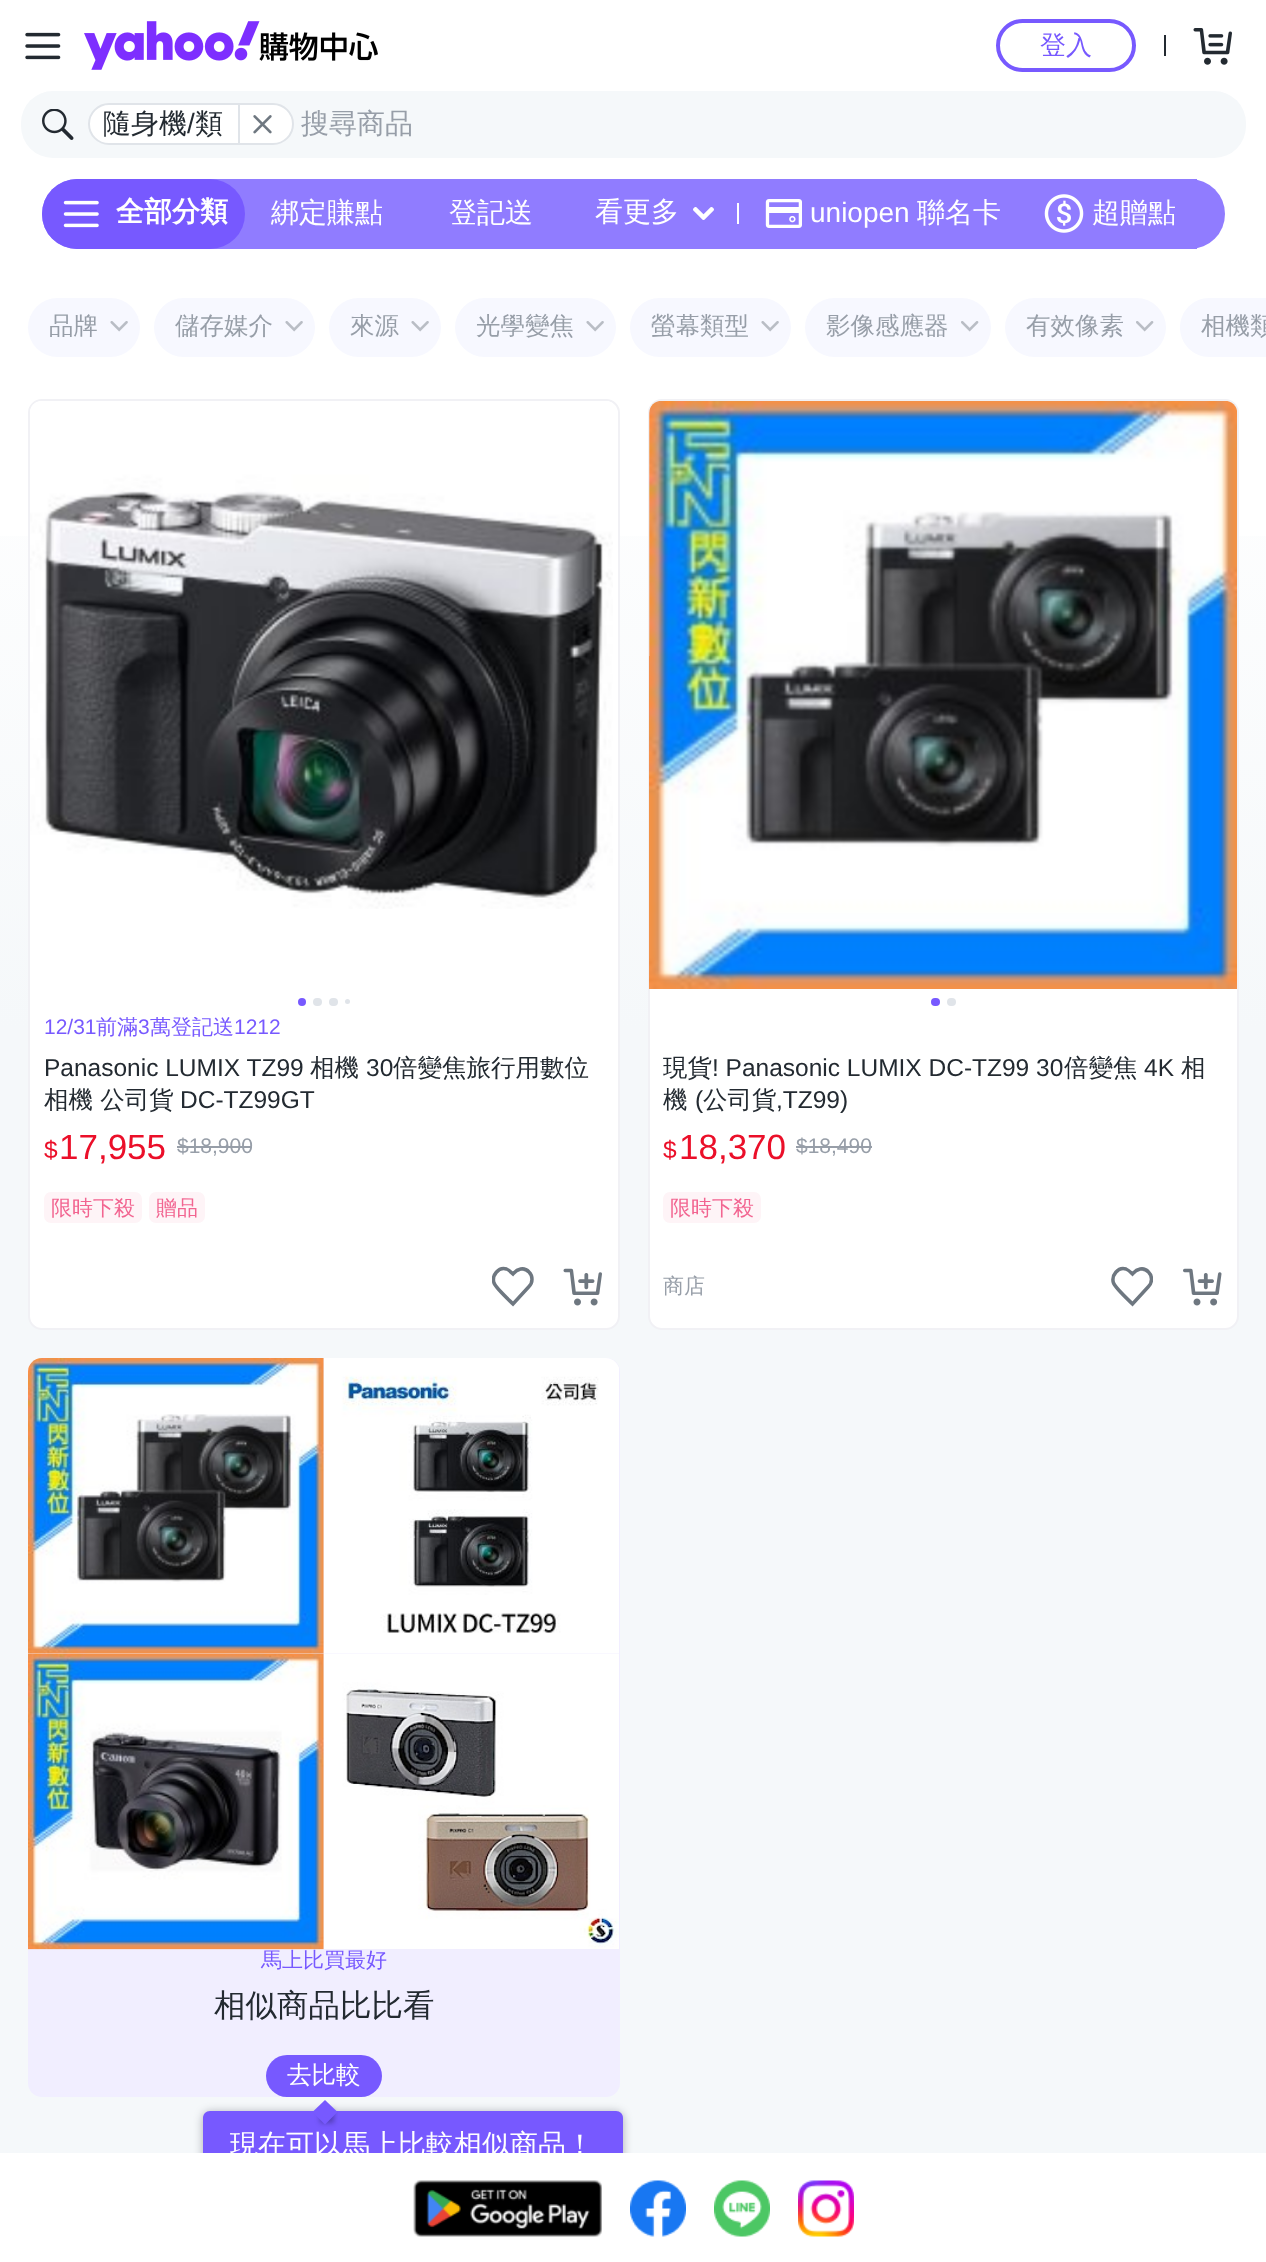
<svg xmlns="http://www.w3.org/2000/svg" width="1266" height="2262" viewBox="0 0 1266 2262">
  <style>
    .t1 { font: 500 26px WenQuanYi Zen Hei; fill: #7759ff; }
    .t2 { font: 500 28px WenQuanYi Zen Hei; fill: #232a31; }
    .t3 { font: 28px Liberation Sans; fill: #232a31; }
    .t4 { font: 500 28px WenQuanYi Zen Hei; fill: #979ea8; }
    .t5 { font: bold 28px WenQuanYi Zen Hei; fill: #fff; }
    .t6 { font: 500 28px WenQuanYi Zen Hei; fill: #fff; }
    .t7 { font: 28px Liberation Sans; fill: #fff; }
    .t8 { font: 500 24.5px WenQuanYi Zen Hei; fill: #979ea8; }
    .t9 { font: 21px Liberation Sans; fill: #7759ff; }
    .t10 { font: 500 21px WenQuanYi Zen Hei; fill: #7759ff; }
    .t11 { font: 24.5px Liberation Sans; fill: #232a31; }
    .t12 { font: 500 24.5px WenQuanYi Zen Hei; fill: #232a31; }
    .t13 { font: 24.5px Liberation Sans; fill: #eb0f29; }
    .t14 { font: 35px Liberation Sans; fill: #eb0f29; }
    .t15 { font: 21px Liberation Sans; fill: #979ea8; }
    .t16 { font: 500 21px WenQuanYi Zen Hei; fill: #f26591; }
    .t17 { font: 500 21px WenQuanYi Zen Hei; fill: #979ea8; }
    .t18 { font: 500 31.5px WenQuanYi Zen Hei; fill: #232a31; }
    .t19 { font: 500 24.5px WenQuanYi Zen Hei; fill: #fff; }
  </style>
  <defs>
    <linearGradient id="g1" gradientUnits="userSpaceOnUse" x1="633" y1="371" x2="634" y2="2153"><stop offset="0" stop-color="#fff"/><stop offset="0.37" stop-color="#f5f8fa"/></linearGradient>
    <clipPath id="clip1"><rect x="44" y="1017" width="560" height="21"/></clipPath>
    <clipPath id="clip2"><rect x="492" y="1265" width="42" height="42"/></clipPath>
    <clipPath id="clip3"><rect x="1111" y="1265" width="42" height="42"/></clipPath>
    <clipPath id="clip4"><rect x="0" y="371" width="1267" height="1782"/></clipPath>
    <clipPath id="clip5"><rect x="0" y="371" width="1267" height="1782"/></clipPath>
  </defs>
  <rect width="100%" height="100%" fill="#fff"/>
  <image x="25" y="32" width="36" height="28" href="images/1.png"/>
  <image x="84" y="21" width="294" height="49" href="images/2.png"/>
  <rect x="998" y="21" width="136" height="49" rx="24.5" fill="none" stroke="#7759ff" stroke-width="4"/>
  <text x="1040" y="54" class="t1">登入</text>
  <rect x="1164" y="35" width="2" height="21" fill="#232a31"/>
  <image x="1193" y="28" width="39" height="37" href="images/3.png"/>
  <rect x="21" y="91" width="1225" height="67" rx="32" fill="#f5f8fa"/>
  <image x="42" y="109" width="32" height="31" href="images/4.png"/>
  <rect x="89" y="104" width="204" height="40" rx="20" fill="#fff" stroke="#e0e4e9" stroke-width="2"/>
  <rect x="238" y="103" width="2" height="42" fill="#e0e4e9"/>
  <text x="103" y="133" class="t2">隨身機</text>
  <text x="187" y="133" class="t3">/</text>
  <text x="195" y="133" class="t2">類</text>
  <image x="253" y="115" width="19" height="19" href="images/5.png"/>
  <text x="301" y="133" class="t4">搜尋商品</text>
  <rect x="42" y="179" width="1183" height="70" rx="35" fill="#907cff"/>
  <rect x="42" y="179" width="203" height="70" rx="35" fill="#7759ff"/>
  <image x="63" y="200" width="36" height="28" href="images/6.png"/>
  <text x="116" y="221" class="t5">全部分類</text>
  <text x="271" y="222" class="t6">綁定賺點</text>
  <text x="449" y="222" class="t6">登記送</text>
  <text x="595" y="221" class="t6">看更多</text>
  <image x="693" y="207" width="21" height="13" href="images/7.png"/>
  <rect x="737" y="203" width="2" height="21" fill="#fff"/>
  <image x="765" y="199" width="37" height="29" href="images/8.png"/>
  <text x="810" y="222" class="t7">uniopen</text>
  <text x="917" y="222" class="t6">聯名卡</text>
  <rect x="1190" y="179" width="7" height="70" fill="#907cff"/>
  <image x="1044" y="194" width="40" height="39" href="images/9.png"/>
  <text x="1092" y="222" class="t6">超贈點</text>
  <rect x="28" y="298" width="112" height="59" rx="29.5" fill="#f7f8ff"/>
  <text x="49" y="334" class="t8">品牌</text>
  <image x="110" y="321" width="18" height="11" href="images/10.png"/>
  <rect x="154" y="298" width="161" height="59" rx="29.5" fill="#f7f8ff"/>
  <text x="175" y="334" class="t8">儲存媒介</text>
  <image x="285" y="321" width="18" height="11" href="images/10.png"/>
  <rect x="329" y="298" width="112" height="59" rx="29.5" fill="#f7f8ff"/>
  <text x="350" y="334" class="t8">來源</text>
  <image x="411" y="321" width="18" height="11" href="images/10.png"/>
  <rect x="455" y="298" width="161" height="59" rx="29.5" fill="#f7f8ff"/>
  <text x="476" y="334" class="t8">光學變焦</text>
  <image x="586" y="321" width="18" height="11" href="images/10.png"/>
  <rect x="630" y="298" width="161" height="59" rx="29.5" fill="#f7f8ff"/>
  <text x="651" y="334" class="t8">螢幕類型</text>
  <image x="761" y="321" width="18" height="11" href="images/10.png"/>
  <rect x="805" y="298" width="186" height="59" rx="29.5" fill="#f7f8ff"/>
  <text x="826" y="334" class="t8">影像感應器</text>
  <image x="961" y="321" width="18" height="11" href="images/11.png"/>
  <rect x="1005" y="298" width="161" height="59" rx="29.5" fill="#f7f8ff"/>
  <text x="1026" y="334" class="t8">有效像素</text>
  <image x="1136" y="321" width="18" height="11" href="images/11.png"/>
  <path d="M1209.5 298H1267V357H1209.5C1193 357 1180 344 1180 327.5C1180 311 1193 298 1209.5 298Z" fill="#f7f8ff"/>
  <text x="1201" y="334" class="t8">相機類</text>
  <rect x="0" y="536" width="1266" height="1617" fill="url(#g1)"/>
  <rect x="29" y="400" width="590" height="929" rx="13" fill="#fff" stroke="#f1f1f5" stroke-width="2"/>
  <image x="30" y="401" width="583" height="508" href="images/12.png"/>
  <circle cx="302" cy="1002" r="4" fill="#7759ff"/>
  <rect x="313" y="998" width="9" height="8" rx="4" fill="#e0e4e9"/>
  <rect x="329" y="998" width="9" height="8" rx="4" fill="#e0e4e9"/>
  <circle cx="347.5" cy="1001.5" r="2.5" fill="#e0e4e9"/>
  <text x="44" y="1034" class="t9">12/31</text>
  <g clip-path="url(#clip1)">
    <text x="96" y="1034" class="t10">前滿</text>
  </g>
  <text x="138" y="1034" class="t9">3</text>
  <g clip-path="url(#clip1)">
    <text x="150" y="1034" class="t10">萬登記送</text>
  </g>
  <text x="234" y="1034" class="t9">1212</text>
  <text x="44" y="1076" class="t11">Panasonic LUMIX TZ99</text>
  <text x="310" y="1076" class="t12">相機</text>
  <text x="366" y="1076" class="t11">30</text>
  <text x="393" y="1076" class="t12">倍變焦旅行用數位</text>
  <text x="44" y="1108" class="t12">相機 公司貨</text>
  <text x="180" y="1108" class="t11">DC-TZ99GT</text>
  <text x="44" y="1158" class="t13">$</text>
  <text x="59" y="1159" class="t14">17,955</text>
  <text x="177" y="1153" class="t15">$18,900</text>
  <rect x="177" y="1146" width="75" height="2" fill="#979ea8"/>
  <rect x="45" y="1193" width="96" height="29" rx="6" fill="#fef4f7" stroke="#fef4f7" stroke-width="2"/>
  <text x="51" y="1215" class="t16">限時下殺</text>
  <rect x="150" y="1193" width="54" height="29" rx="6" fill="#fef4f7" stroke="#fef4f7" stroke-width="2"/>
  <text x="156" y="1215" class="t16">贈品</text>
  <g clip-path="url(#clip2)">
    <path d="M529 1272C524 1266.5 517 1269 513 1274C511 1272 509 1270 506.5 1269C498.5 1266.5 491.5 1275.5 494 1283C496 1288 508.5 1299.5 513 1304L529 1286.5C533 1282.5 533 1276 529 1272" fill="none" stroke="#6e7780" stroke-width="3.5"/>
  </g>
  <image x="563" y="1268" width="39" height="38" href="images/13.png"/>
  <rect x="649" y="400" width="589" height="929" rx="13" fill="#fff" stroke="#f1f1f5" stroke-width="2"/>
  <image x="649" y="401" width="588" height="588" href="images/14.png"/>
  <rect x="931" y="998" width="9" height="8" rx="4" fill="#7759ff"/>
  <rect x="947" y="998" width="9" height="8" rx="4" fill="#e0e4e9"/>
  <text x="663" y="1076" class="t12">現貨</text>
  <text x="712" y="1076" class="t11">! Panasonic LUMIX DC-TZ99 30</text>
  <text x="1064" y="1076" class="t12">倍變焦</text>
  <text x="1144" y="1076" class="t11">4K</text>
  <text x="1181" y="1076" class="t12">相</text>
  <text x="663" y="1108" class="t12">機</text>
  <text x="695" y="1108" class="t11">(</text>
  <text x="703" y="1108" class="t12">公司貨</text>
  <text x="776" y="1108" class="t11">,TZ99)</text>
  <text x="663" y="1158" class="t13">$</text>
  <text x="679" y="1159" class="t14">18,370</text>
  <text x="796" y="1153" class="t15">$18,490</text>
  <rect x="796" y="1146" width="76" height="2" fill="#979ea8"/>
  <rect x="664" y="1193" width="96" height="29" rx="6" fill="#fef4f7" stroke="#fef4f7" stroke-width="2"/>
  <text x="670" y="1215" class="t16">限時下殺</text>
  <text x="663" y="1293" class="t17">商店</text>
  <g clip-path="url(#clip3)">
    <path d="M1148.5 1272C1143.5 1266.5 1136.5 1269 1132.5 1274C1130.5 1272 1128.5 1270 1126 1269C1118 1266.5 1111 1275.5 1113.5 1283C1115.5 1288 1128 1299.5 1132.5 1304L1148.5 1286.5C1152.5 1282.5 1152.5 1276 1148.5 1272" fill="none" stroke="#6e7780" stroke-width="3.5"/>
  </g>
  <image x="1183" y="1268" width="39" height="38" href="images/15.png"/>
  <rect x="28" y="1358" width="592" height="739" rx="14" fill="#f1eeff"/>
  <image x="28" y="1358" width="296" height="296" href="images/16.png"/>
  <image x="323" y="1358" width="296" height="296" href="images/17.png"/>
  <text x="261" y="1967" class="t10">馬上比買最好</text>
  <image x="28" y="1653" width="296" height="297" href="images/18.png"/>
  <image x="323" y="1654" width="296" height="295" href="images/19.png"/>
  <text x="214" y="2016" class="t18">相似商品比比看</text>
  <rect x="266" y="2055" width="116" height="42" rx="21" fill="#7759ff"/>
  <text x="287" y="2083" class="t19">去比較</text>
  <image x="413" y="2180" width="189" height="57" href="images/20.png"/>
  <image x="630" y="2180" width="56" height="57" href="images/21.png"/>
  <g clip-path="url(#clip4)">
    <rect x="203" y="2112" width="420" height="77" rx="7" fill="#0000144d" filter="blur(5px)"/>
  </g>
  <path d="M210 2111H616C620 2111 623 2114 623 2118V2153H203V2118C203 2114 206 2111 210 2111Z" fill="#7759ff"/>
  <rect x="320" y="2109" width="14" height="14" fill="#0000144d" filter="blur(2.5px)"/>
  <path d="M325 2124.5L312.5 2112L325 2100L337.5 2112Z" fill="#7759ff"/>
  <g clip-path="url(#clip5)">
    <text x="230" y="2154" class="t6">現在可以馬上比較相似商品！</text>
  </g>
  <image x="714" y="2180" width="56" height="57" href="images/22.png"/>
  <image x="798" y="2180" width="56" height="57" href="images/23.png"/>
</svg>
